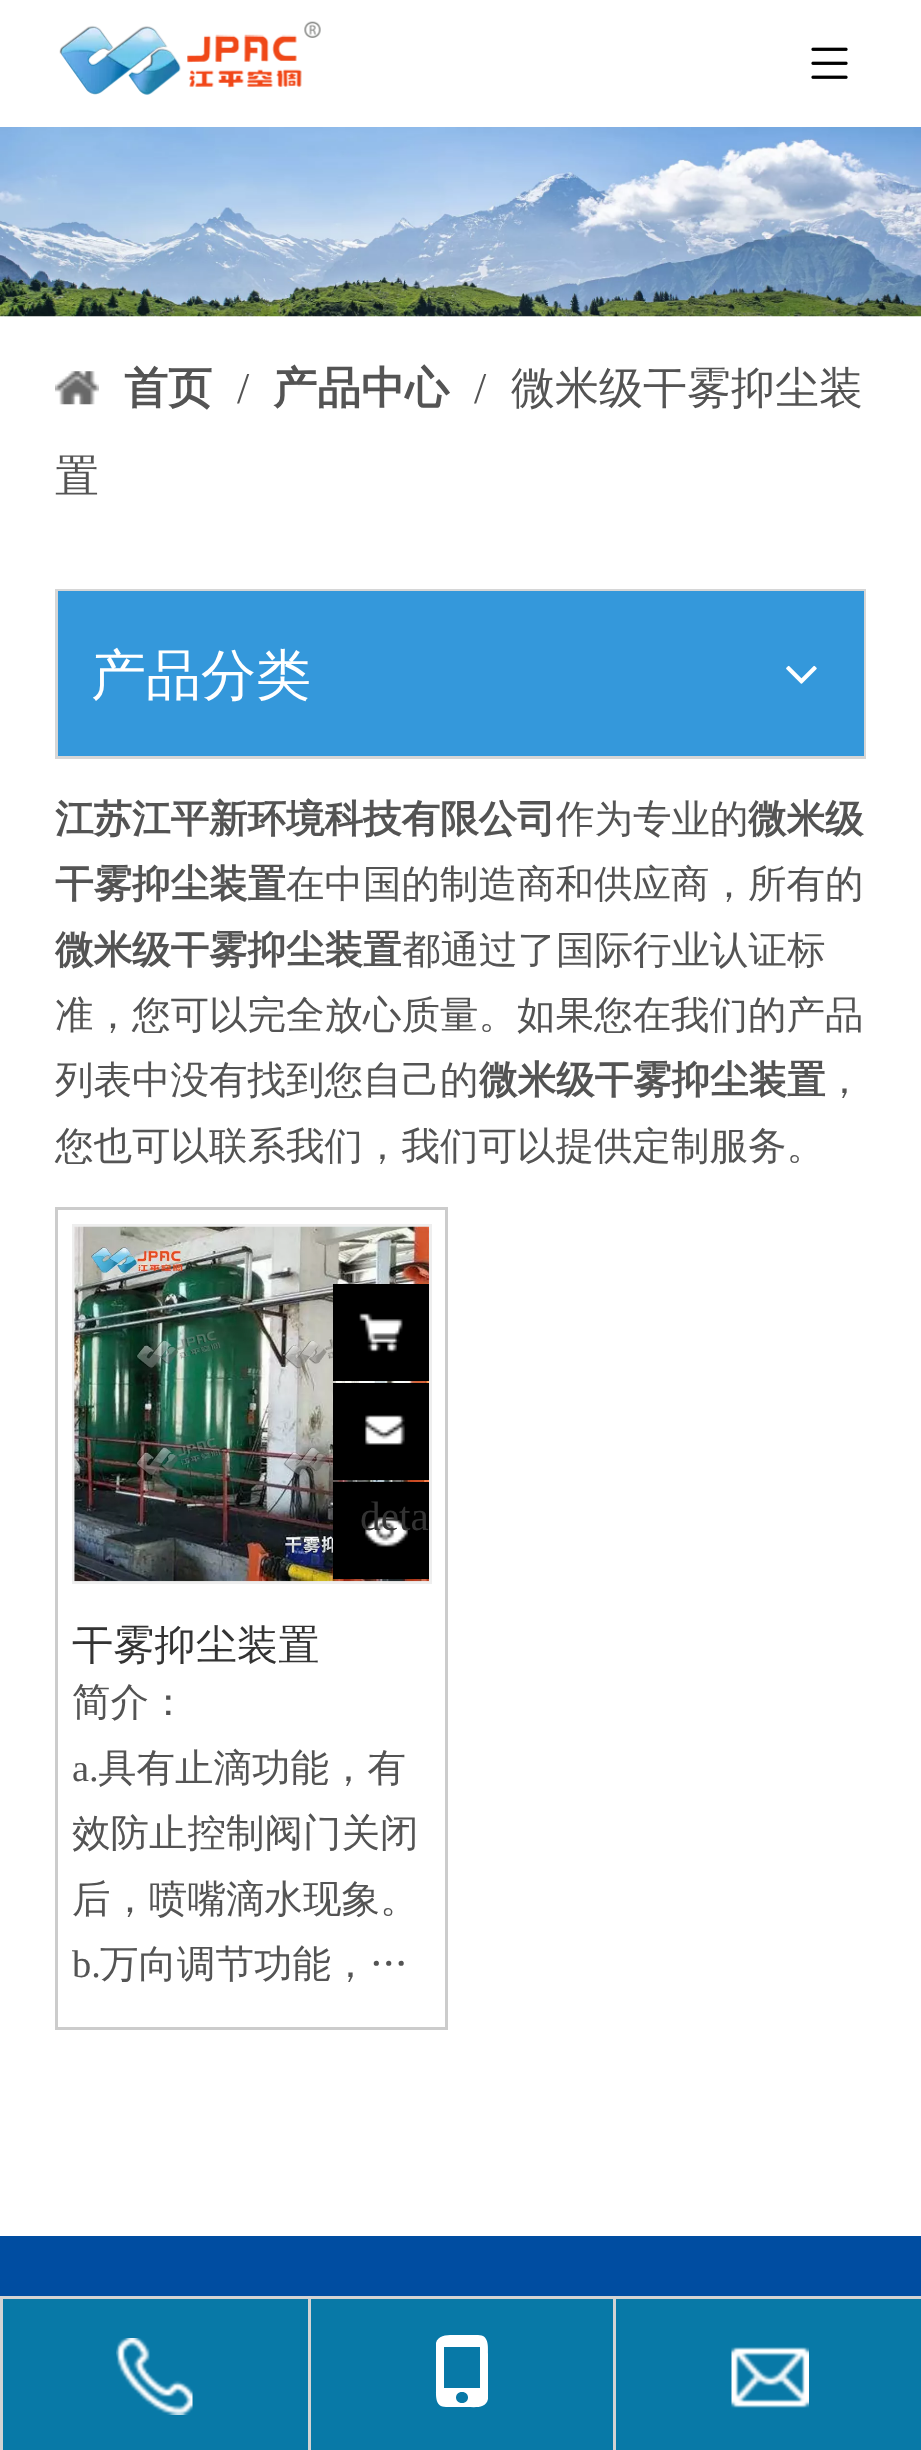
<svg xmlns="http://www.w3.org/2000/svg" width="921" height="2450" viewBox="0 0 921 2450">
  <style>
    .t1 { font: bold 44px WenQuanYi Zen Hei; fill: #545454; }
    .t2 { font: 44px Liberation Serif; fill: #545454; }
    .t3 { font: 500 44px WenQuanYi Zen Hei; fill: #545454; }
    .t4 { font: 500 55px WenQuanYi Zen Hei; fill: #fff; }
    .t5 { font: bold 38.5px WenQuanYi Zen Hei; fill: #545454; }
    .t6 { font: 500 38.5px WenQuanYi Zen Hei; fill: #545454; }
    .t7 { font: 41.25px Liberation Serif; fill: #333; }
    .t8 { font: 500 41.25px WenQuanYi Zen Hei; fill: #333; }
    .t9 { font: 38.5px Liberation Serif; fill: #545454; }
  </style>
  <rect width="100%" height="100%" fill="#fff"/>
  <image x="59" y="21" width="262" height="74" href="images/1.png"/>
  <image x="811" y="47" width="37" height="32" href="images/2.png"/>
  <image x="0" y="127" width="921" height="190" href="images/3.png"/>
  <image x="55" y="371" width="44" height="34" href="images/4.png"/>
  <text x="124" y="403" class="t1">首页</text>
  <text x="237" y="403" class="t2">/</text>
  <text x="273" y="403" class="t1">产品中心</text>
  <text x="474" y="403" class="t2">/</text>
  <text x="511" y="403" class="t3">微米级干雾抑尘装</text>
  <text x="55" y="491" class="t3">置</text>
  <rect x="56.5" y="590.5" width="808" height="167" fill="none" stroke="#d6d6d6" stroke-width="3"/>
  <rect x="58" y="591" width="806" height="165" fill="#3498db"/>
  <text x="91" y="694" class="t4">产品分类</text>
  <image x="786" y="665" width="31" height="19" href="images/5.png"/>
  <text x="55" y="832" class="t5">江苏江平新环境科技有限公司</text>
  <text x="556" y="832" class="t6">作为专业的</text>
  <text x="748" y="832" class="t5">微米级</text>
  <text x="55" y="897" class="t5">干雾抑尘装置</text>
  <text x="286" y="897" class="t6">在中国的制造商和供应商，所有的</text>
  <text x="55" y="963" class="t5">微米级干雾抑尘装置</text>
  <text x="402" y="963" class="t6">都通过了国际行业认证标</text>
  <text x="55" y="1028" class="t6">准，您可以完全放心质量。如果您在我们的产品</text>
  <text x="55" y="1093" class="t6">列表中没有找到您自己的</text>
  <text x="479" y="1093" class="t5">微米级干雾抑尘装置</text>
  <text x="825" y="1093" class="t6">，</text>
  <text x="55" y="1159" class="t6">您也可以联系我们，我们可以提供定制服务。</text>
  <rect x="56.5" y="1208.5" width="390" height="820" fill="none" stroke="#ccc" stroke-width="3"/>
  <rect x="73.5" y="1225.5" width="357" height="357" fill="none" stroke="#eee" stroke-width="3"/>
  <image x="74" y="1226" width="355" height="356" href="images/6.png"/>
  <rect x="333" y="1284" width="96" height="97" fill="#000"/>
  <image x="359" y="1313" width="44" height="40" href="images/7.png"/>
  <rect x="333" y="1383" width="96" height="97" fill="#000"/>
  <image x="365" y="1415" width="40" height="30" href="images/8.png"/>
  <rect x="333" y="1482" width="96" height="97" fill="#000"/>
  <image x="365" y="1517" width="43" height="30" href="images/9.png"/>
  <text x="360" y="1530" class="t7">deta</text>
  <text x="72" y="1659" class="t8">干雾抑尘装置</text>
  <text x="72" y="1715" class="t6">简介：</text>
  <text x="72" y="1781" class="t9">a.</text>
  <text x="98" y="1781" class="t6">具有止滴功能，有</text>
  <text x="72" y="1846" class="t6">效防止控制阀门关闭</text>
  <text x="72" y="1912" class="t6">后，喷嘴滴水现象。</text>
  <text x="72" y="1977" class="t9">b.</text>
  <text x="100" y="1977" class="t6">万向调节功能，…</text>
  <rect x="0" y="2236" width="921" height="60" fill="#004da1"/>
  <rect x="0" y="2296" width="921" height="3" fill="#d3d3d3"/>
  <rect x="0" y="2299" width="3" height="151" fill="#d3d3d3"/>
  <rect x="3" y="2299" width="305" height="151" fill="#0879a7"/>
  <image x="116" y="2338" width="77" height="77" href="images/10.png"/>
  <rect x="308" y="2299" width="3" height="151" fill="#d3d3d3"/>
  <rect x="311" y="2299" width="302" height="151" fill="#0879a7"/>
  <path d="M478 2335H457C450 2335 438 2334 436 2343V2389C436 2396 435 2407 446 2407H467C474 2407 486 2409 488 2399V2354C488 2346 489 2335 478 2335ZM462 2403C454 2403 454 2392 462 2392C470 2392 470 2403 462 2403ZM480 2388H444V2347H480Z" fill="#fff"/>
  <rect x="613" y="2299" width="3" height="151" fill="#d3d3d3"/>
  <rect x="616" y="2299" width="305" height="151" fill="#0879a7"/>
  <image x="731" y="2347" width="78" height="61" href="images/11.png"/>
</svg>
